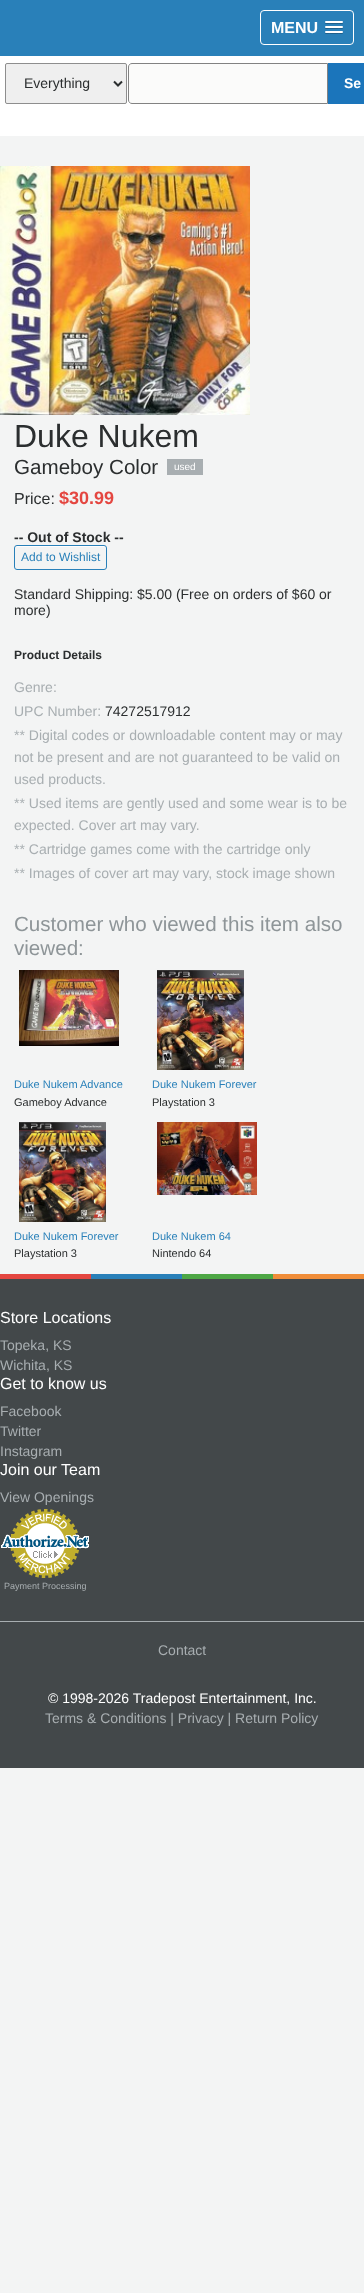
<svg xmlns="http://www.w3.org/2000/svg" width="364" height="2293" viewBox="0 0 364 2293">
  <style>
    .t1 { font: bold 16px Liberation Sans; fill: #fff; }
    .t2 { font: 14px Liberation Sans; fill: #2b2e2f; }
    .t3 { font: bold 14px Liberation Sans; fill: #fff; }
    .t4 { font: 32px Liberation Sans; fill: #2b2e2f; }
    .t5 { font: 20.6px Liberation Sans; fill: #2b2e2f; }
    .t6 { font: 10px Liberation Sans; fill: #fff; }
    .t7 { font: 16px Liberation Sans; fill: #2b2e2f; }
    .t8 { font: bold 18px Liberation Sans; fill: #e44640; }
    .t9 { font: bold 14px Liberation Sans; fill: #2b2e2f; }
    .t10 { font: 12px Liberation Sans; fill: #2980b9; }
    .t11 { font: bold 12px Liberation Sans; fill: #2b2e2f; }
    .t12 { font: 14px Liberation Sans; fill: #a8aeb1; }
    .t13 { font: 20.6px Liberation Sans; fill: #8e9598; }
    .t14 { font: 11px Liberation Sans; fill: #2980b9; }
    .t15 { font: 11px Liberation Sans; fill: #2b2e2f; }
    .t16 { font: 16px Liberation Sans; fill: #fff; }
    .t17 { font: 9px Liberation Sans; fill: #a8aeb1; }
    .t18 { font: 14px Liberation Sans; fill: #fff; }
  </style>
  <rect width="100%" height="100%" fill="#f3f4f4"/>
  <rect x="0" y="0" width="364" height="56" fill="#2980b9"/>
  <rect x="260.5" y="10.5" width="93" height="34" rx="3.5" fill="none" stroke="#fff"/>
  <text x="271" y="33" class="t1">MENU</text>
  <path d="M325 22.5C324 24.5 328.5 24 328.5 24H339.5C339.5 24 344 24.5 343 22.5C342 23.5 335.5 23 334 23C332.5 23 326 23.5 325 22.5Z" fill="#1f608b"/>
  <rect x="325" y="21" width="18" height="2" rx="1" fill="#fff"/>
  <path d="M325 27.5C324 29.5 328.5 29 328.5 29H339.5C339.5 29 344 29.5 343 27.5C342 28.5 335.5 28 334 28C332.5 28 326 28.5 325 27.5Z" fill="#1f608b"/>
  <rect x="325" y="26" width="18" height="2" rx="1" fill="#fff"/>
  <path d="M325 32.5C324 34.5 328.5 34 328.5 34H339.5C339.5 34 344 34.5 343 32.5C342 33.5 335.5 33 334 33C332.5 33 326 33.5 325 32.5Z" fill="#1f608b"/>
  <rect x="325" y="31" width="18" height="2" rx="1" fill="#fff"/>
  <rect x="0" y="56" width="364" height="80" fill="#fff"/>
  <rect x="5.5" y="63.5" width="121" height="40" rx="1.5" fill="#efefef" stroke="#8e8e8e"/>
  <path d="M114 81.5L118 85.5L122 81.5" fill="none" stroke="#2b2e2f" stroke-width="2"/>
  <text x="24" y="88" class="t2">Everything</text>
  <path d="M132 63.5H327.5V103.5H132C130 103.5 128.5 102 128.5 100V67C128.5 65 130 63.5 132 63.5Z" fill="#fbfbfa" stroke="#828282"/>
  <rect x="328" y="63" width="36" height="41" fill="#1b75bb"/>
  <text x="344" y="88" class="t3">Se</text>
  <image x="0" y="166" width="250" height="249" href="images/1.png"/>
  <text x="14" y="447" class="t4">Duke Nukem</text>
  <text x="14" y="474" class="t5">Gameboy Color</text>
  <rect x="167" y="459" width="36" height="16" fill="#a8aeb1"/>
  <text x="174" y="470" class="t6">used</text>
  <text x="14" y="504" class="t7">Price:</text>
  <text x="59" y="504" class="t8">$30.99</text>
  <text x="14" y="542" class="t9">-- Out of Stock --</text>
  <path d="M17 547H104C105 547 106 548 106 549C106 548 106 546 104 546H32C29 546 15 542 15 549C15 548 16 547 17 547Z" fill="#fefefe"/>
  <rect x="14.5" y="545.5" width="92" height="24" rx="2.5" fill="none" stroke="#2980b9"/>
  <text x="21" y="561" class="t10">Add to Wishlist</text>
  <text x="14" y="599" class="t2">Standard Shipping: $5.00 (Free on orders of $60 or</text>
  <text x="14" y="615" class="t2">more)</text>
  <text x="14" y="659" class="t11">Product Details</text>
  <text x="14" y="692" class="t12">Genre:</text>
  <text x="14" y="716" class="t12">UPC Number:</text>
  <text x="105" y="716" class="t2">74272517912</text>
  <text x="14" y="740" class="t12">** Digital codes or downloadable content may or may</text>
  <text x="14" y="762" class="t12">not be present and are not guaranteed to be valid on</text>
  <text x="14" y="784" class="t12">used products.</text>
  <text x="14" y="808" class="t12">** Used items are gently used and some wear is to be</text>
  <text x="14" y="830" class="t12">expected. Cover art may vary.</text>
  <text x="14" y="854" class="t12">** Cartridge games come with the cartridge only</text>
  <text x="14" y="878" class="t12">** Images of cover art may vary, stock image shown</text>
  <text x="14" y="931" class="t13">Customer who viewed this item also</text>
  <text x="14" y="955" class="t13">viewed:</text>
  <image x="19" y="970" width="100" height="76" href="images/2.png"/>
  <text x="14" y="1088" class="t14">Duke Nukem Advance</text>
  <text x="14" y="1106" class="t15">Gameboy Advance</text>
  <image x="157" y="970" width="87" height="100" href="images/3.png"/>
  <text x="152" y="1088" class="t14">Duke Nukem Forever</text>
  <text x="152" y="1106" class="t15">Playstation 3</text>
  <image x="19" y="1122" width="87" height="100" href="images/4.png"/>
  <text x="14" y="1240" class="t14">Duke Nukem Forever</text>
  <text x="14" y="1257" class="t15">Playstation 3</text>
  <image x="157" y="1122" width="100" height="73" href="images/5.png"/>
  <text x="152" y="1240" class="t14">Duke Nukem 64</text>
  <text x="152" y="1257" class="t15">Nintendo 64</text>
  <rect x="0" y="1279" width="364" height="489" fill="#43484a"/>
  <rect x="0" y="1274" width="91" height="5" fill="#e44640"/>
  <rect x="91" y="1274" width="91" height="5" fill="#2980b9"/>
  <rect x="182" y="1274" width="91" height="5" fill="#4da745"/>
  <rect x="273" y="1274" width="91" height="5" fill="#f08d39"/>
  <text x="0" y="1323" class="t16">Store Locations</text>
  <text x="0" y="1350" class="t12">Topeka, KS</text>
  <text x="0" y="1370" class="t12">Wichita, KS</text>
  <text x="0" y="1389" class="t16">Get to know us</text>
  <text x="0" y="1416" class="t12">Facebook</text>
  <text x="0" y="1436" class="t12">Twitter</text>
  <text x="0" y="1456" class="t12">Instagram</text>
  <text x="0" y="1475" class="t16">Join our Team</text>
  <text x="0" y="1502" class="t12">View Openings</text>
  <image x="1" y="1509" width="88" height="69" href="images/6.png"/>
  <text x="4" y="1589" class="t17">Payment Processing</text>
  <rect x="0" y="1621" width="364" height="1" fill="#a8aeb1"/>
  <text x="158" y="1655" class="t12">Contact</text>
  <text x="48" y="1703" class="t18">© 1998-2026 Tradepost Entertainment, Inc.</text>
  <text x="45" y="1723" class="t12">Terms &amp; Conditions | Privacy | Return Policy</text>
</svg>
